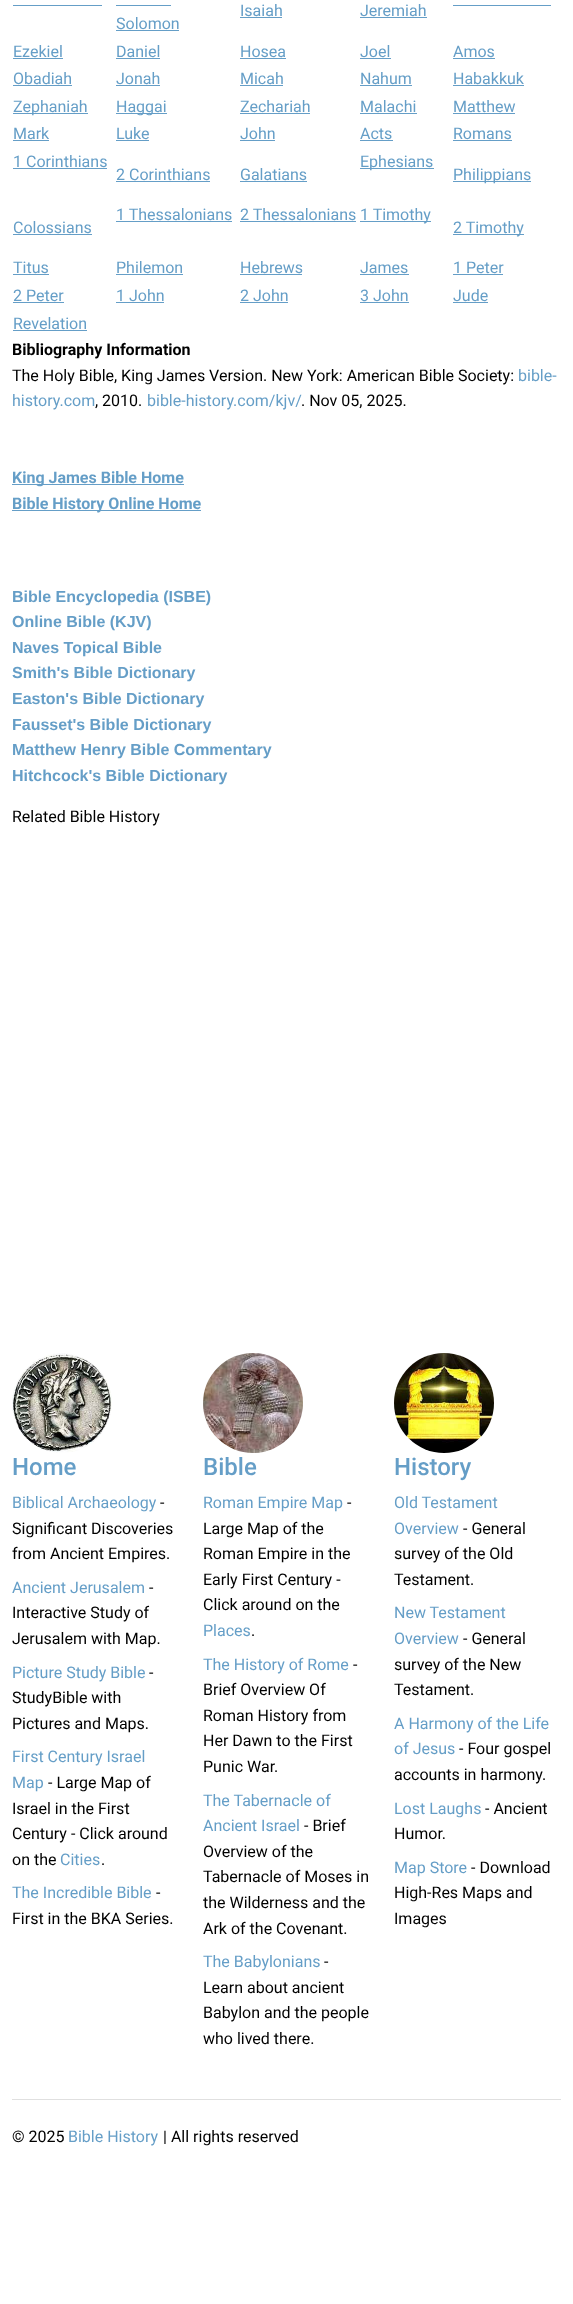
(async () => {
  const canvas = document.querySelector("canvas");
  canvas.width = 573;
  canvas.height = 2304;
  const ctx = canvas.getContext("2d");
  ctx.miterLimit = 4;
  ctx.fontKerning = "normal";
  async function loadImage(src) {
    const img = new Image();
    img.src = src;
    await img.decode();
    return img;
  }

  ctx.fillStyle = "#ffffff";
  ctx.fillRect(0, 0, 573, 2304);
  for (const [x, y, w, h, color] of [
    [13, 5, 89, 1, "#659ec7"],
    [240, 17, 42, 1, "#659ec7"],
    [360, 17, 67, 1, "#659ec7"],
    [453, 5, 98, 1, "#659ec7"],
    [116, 5, 55, 1, "#659ec7"],
    [116, 30, 63, 1, "#659ec7"],
    [13, 58, 50, 1, "#659ec7"],
    [116, 58, 44, 1, "#659ec7"],
    [240, 58, 46, 1, "#659ec7"],
    [360, 58, 31, 1, "#659ec7"],
    [453, 58, 42, 1, "#659ec7"],
    [13, 85, 59, 1, "#659ec7"],
    [116, 85, 44, 1, "#659ec7"],
    [240, 85, 43, 1, "#659ec7"],
    [360, 85, 52, 1, "#659ec7"],
    [453, 85, 71, 1, "#659ec7"],
    [13, 113, 75, 1, "#659ec7"],
    [116, 113, 51, 1, "#659ec7"],
    [240, 113, 70, 1, "#659ec7"],
    [360, 113, 57, 1, "#659ec7"],
    [453, 113, 62, 1, "#659ec7"],
    [13, 140, 36, 1, "#659ec7"],
    [116, 140, 33, 1, "#659ec7"],
    [240, 140, 35, 1, "#659ec7"],
    [360, 140, 33, 1, "#659ec7"],
    [453, 140, 59, 1, "#659ec7"],
    [13, 168, 94, 1, "#659ec7"],
    [360, 168, 74, 1, "#659ec7"],
    [116, 181, 94, 1, "#659ec7"],
    [240, 181, 67, 1, "#659ec7"],
    [453, 181, 78, 1, "#659ec7"],
    [116, 221, 116, 1, "#659ec7"],
    [240, 221, 116, 1, "#659ec7"],
    [360, 221, 71, 1, "#659ec7"],
    [13, 234, 79, 1, "#659ec7"],
    [453, 234, 71, 1, "#659ec7"],
    [13, 274, 36, 1, "#659ec7"],
    [116, 274, 67, 1, "#659ec7"],
    [240, 274, 62, 1, "#659ec7"],
    [360, 274, 49, 1, "#659ec7"],
    [453, 274, 50, 1, "#659ec7"],
    [13, 302, 51, 1, "#659ec7"],
    [116, 302, 48, 1, "#659ec7"],
    [240, 302, 48, 1, "#659ec7"],
    [360, 302, 49, 1, "#659ec7"],
    [453, 302, 35, 1, "#659ec7"],
    [13, 330, 74, 1, "#659ec7"],
    [12, 484, 172, 1, "#659ec7"],
    [12, 510, 189, 1, "#659ec7"],
  ]) {
    ctx.fillStyle = color;
    ctx.fillRect(x, y, w, h);
  }
  ctx.drawImage(await loadImage("img/1.png"), 12, 1353, 100, 100);
  ctx.drawImage(await loadImage("img/2.png"), 203, 1353, 100, 100);
  ctx.drawImage(await loadImage("img/3.png"), 394, 1353, 100, 100);
  ctx.fillStyle = "#e0e0e0";
  ctx.fillRect(12, 2099, 549, 1);
  ctx.font = "16px Roboto";
  ctx.fillStyle = "#659ec7";
  for (const [text, x, y] of [
    ["Isaiah", 240, 16],
    ["Jeremiah", 360, 16],
    ["Solomon", 116, 29],
    ["Ezekiel", 13, 57],
    ["Daniel", 116, 57],
    ["Hosea", 240, 57],
    ["Joel", 360, 57],
    ["Amos", 453, 57],
    ["Obadiah", 13, 84],
    ["Jonah", 116, 84],
    ["Micah", 240, 84],
    ["Nahum", 360, 84],
    ["Habakkuk", 453, 84],
    ["Zephaniah", 13, 112],
    ["Haggai", 116, 112],
    ["Zechariah", 240, 112],
    ["Malachi", 360, 112],
    ["Matthew", 453, 112],
    ["Mark", 13, 139],
    ["Luke", 116, 139],
    ["John", 240, 139],
    ["Acts", 360, 139],
    ["Romans", 453, 139],
    ["1 Corinthians", 13, 167],
    ["Ephesians", 360, 167],
    ["2 Corinthians", 116, 180],
    ["Galatians", 240, 180],
    ["Philippians", 453, 180],
    ["1 Thessalonians", 116, 220],
    ["2 Thessalonians", 240, 220],
    ["1 Timothy", 360, 220],
    ["Colossians", 13, 233],
    ["2 Timothy", 453, 233],
    ["Titus", 13, 273],
    ["Philemon", 116, 273],
    ["Hebrews", 240, 273],
    ["James", 360, 273],
    ["1 Peter", 453, 273],
    ["2 Peter", 13, 301],
    ["1 John", 116, 301],
    ["2 John", 240, 301],
    ["3 John", 360, 301],
    ["Jude", 453, 301],
    ["Revelation", 13, 329],
  ]) {
    ctx.fillText(text, x, y);
  }
  ctx.font = "bold 16px Roboto";
  ctx.fillStyle = "#000000";
  ctx.fillText("Bibliography Information", 12, 355);
  ctx.font = "16px Roboto";
  ctx.fillText("The Holy Bible, King James Version. New York: American Bible Society:", 12, 381);
  ctx.fillStyle = "#659ec7";
  ctx.fillText("bible-", 518, 381);
  ctx.fillText("history.com", 12, 406);
  ctx.fillStyle = "#000000";
  ctx.fillText(", 2010.", 95, 406);
  ctx.fillStyle = "#659ec7";
  ctx.fillText("bible-history.com/kjv/", 147, 406);
  ctx.fillStyle = "#000000";
  ctx.fillText(". Nov 05, 2025.", 301, 406);
  ctx.font = "bold 16px Roboto";
  ctx.fillStyle = "#659ec7";
  ctx.fillText("King James Bible Home", 12, 483);
  ctx.fillText("Bible History Online Home", 12, 509);
  ctx.font = "bold 16px Liberation Sans";
  for (const [text, x, y] of [
    ["Bible Encyclopedia (ISBE)", 12, 602],
    ["Online Bible (KJV)", 12, 627],
    ["Naves Topical Bible", 12, 653],
    ["Smith's Bible Dictionary", 12, 678],
    ["Easton's Bible Dictionary", 12, 704],
    ["Fausset's Bible Dictionary", 12, 730],
    ["Matthew Henry Bible Commentary", 12, 755],
    ["Hitchcock's Bible Dictionary", 12, 781],
  ]) {
    ctx.fillText(text, x, y);
  }
  ctx.font = "16px Roboto";
  ctx.fillStyle = "#000000";
  ctx.fillText("Related Bible History", 12, 822);
  ctx.font = "500 24px Roboto";
  ctx.fillStyle = "#659ec7";
  ctx.fillText("Home", 12, 1475);
  ctx.font = "16px Roboto";
  ctx.fillText("Biblical Archaeology", 12, 1508);
  ctx.fillStyle = "#000000";
  for (const [text, x, y] of [
    ["-", 160, 1508],
    ["Significant Discoveries", 12, 1534],
    ["from Ancient Empires.", 12, 1559],
  ]) {
    ctx.fillText(text, x, y);
  }
  ctx.fillStyle = "#659ec7";
  ctx.fillText("Ancient Jerusalem", 12, 1593);
  ctx.fillStyle = "#000000";
  for (const [text, x, y] of [
    ["-", 149, 1593],
    ["Interactive Study of", 12, 1618],
    ["Jerusalem with Map.", 12, 1644],
  ]) {
    ctx.fillText(text, x, y);
  }
  ctx.fillStyle = "#659ec7";
  ctx.fillText("Picture Study Bible", 12, 1678);
  ctx.fillStyle = "#000000";
  for (const [text, x, y] of [
    ["-", 149, 1678],
    ["StudyBible with", 12, 1703],
    ["Pictures and Maps.", 12, 1729],
  ]) {
    ctx.fillText(text, x, y);
  }
  ctx.fillStyle = "#659ec7";
  ctx.fillText("First Century Israel", 12, 1762);
  ctx.fillText("Map", 12, 1788);
  ctx.fillStyle = "#000000";
  for (const [text, x, y] of [
    ["- Large Map of", 48, 1788],
    ["Israel in the First", 12, 1814],
    ["Century - Click around", 12, 1839],
    ["on the", 12, 1865],
  ]) {
    ctx.fillText(text, x, y);
  }
  ctx.fillStyle = "#659ec7";
  ctx.fillText("Cities", 60, 1865);
  ctx.fillStyle = "#000000";
  ctx.fillText(".", 101, 1865);
  ctx.fillStyle = "#659ec7";
  ctx.fillText("The Incredible Bible", 12, 1898);
  ctx.fillStyle = "#000000";
  ctx.fillText("-", 156, 1898);
  ctx.fillText("First in the BKA Series.", 12, 1924);
  ctx.font = "500 24px Roboto";
  ctx.fillStyle = "#659ec7";
  ctx.fillText("Bible", 203, 1475);
  ctx.font = "16px Roboto";
  ctx.fillText("Roman Empire Map", 203, 1508);
  ctx.fillStyle = "#000000";
  for (const [text, x, y] of [
    ["-", 347, 1508],
    ["Large Map of the", 203, 1534],
    ["Roman Empire in the", 203, 1559],
    ["Early First Century -", 203, 1585],
    ["Click around on the", 203, 1610],
  ]) {
    ctx.fillText(text, x, y);
  }
  ctx.fillStyle = "#659ec7";
  ctx.fillText("Places", 203, 1636);
  ctx.fillStyle = "#000000";
  ctx.fillText(".", 251, 1636);
  ctx.fillStyle = "#659ec7";
  ctx.fillText("The History of Rome", 203, 1670);
  ctx.fillStyle = "#000000";
  for (const [text, x, y] of [
    ["-", 353, 1670],
    ["Brief Overview Of", 203, 1695],
    ["Roman History from", 203, 1721],
    ["Her Dawn to the First", 203, 1746],
    ["Punic War.", 203, 1772],
  ]) {
    ctx.fillText(text, x, y);
  }
  ctx.fillStyle = "#659ec7";
  ctx.fillText("The Tabernacle of", 203, 1806);
  ctx.fillText("Ancient Israel", 203, 1831);
  ctx.fillStyle = "#000000";
  for (const [text, x, y] of [
    ["- Brief", 304, 1831],
    ["Overview of the", 203, 1857],
    ["Tabernacle of Moses in", 203, 1882],
    ["the Wilderness and the", 203, 1908],
    ["Ark of the Covenant.", 203, 1934],
  ]) {
    ctx.fillText(text, x, y);
  }
  ctx.fillStyle = "#659ec7";
  ctx.fillText("The Babylonians", 203, 1967);
  ctx.fillStyle = "#000000";
  for (const [text, x, y] of [
    ["-", 324, 1967],
    ["Learn about ancient", 203, 1993],
    ["Babylon and the people", 203, 2018],
    ["who lived there.", 203, 2044],
  ]) {
    ctx.fillText(text, x, y);
  }
  ctx.font = "500 24px Roboto";
  ctx.fillStyle = "#659ec7";
  ctx.fillText("History", 394, 1475);
  ctx.font = "16px Roboto";
  ctx.fillText("Old Testament", 394, 1508);
  ctx.fillText("Overview", 394, 1534);
  ctx.fillStyle = "#000000";
  for (const [text, x, y] of [
    ["- General", 463, 1534],
    ["survey of the Old", 394, 1559],
    ["Testament.", 394, 1585],
  ]) {
    ctx.fillText(text, x, y);
  }
  ctx.fillStyle = "#659ec7";
  ctx.fillText("New Testament", 394, 1618);
  ctx.fillText("Overview", 394, 1644);
  ctx.fillStyle = "#000000";
  for (const [text, x, y] of [
    ["- General", 463, 1644],
    ["survey of the New", 394, 1670],
    ["Testament.", 394, 1695],
  ]) {
    ctx.fillText(text, x, y);
  }
  ctx.fillStyle = "#659ec7";
  ctx.fillText("A Harmony of the Life", 394, 1729);
  ctx.fillText("of Jesus", 394, 1754);
  ctx.fillStyle = "#000000";
  ctx.fillText("- Four gospel", 459, 1754);
  ctx.fillText("accounts in harmony.", 394, 1780);
  ctx.fillStyle = "#659ec7";
  ctx.fillText("Lost Laughs", 394, 1814);
  ctx.fillStyle = "#000000";
  ctx.fillText("- Ancient", 485, 1814);
  ctx.fillText("Humor.", 394, 1839);
  ctx.fillStyle = "#659ec7";
  ctx.fillText("Map Store", 394, 1873);
  ctx.fillStyle = "#000000";
  for (const [text, x, y] of [
    ["- Download", 471, 1873],
    ["High-Res Maps and", 394, 1898],
    ["Images", 394, 1924],
    ["© 2025", 12, 2142],
  ]) {
    ctx.fillText(text, x, y);
  }
  ctx.fillStyle = "#659ec7";
  ctx.fillText("Bible History", 68, 2142);
  ctx.fillStyle = "#000000";
  ctx.fillText("| All rights reserved", 163, 2142);
})();
